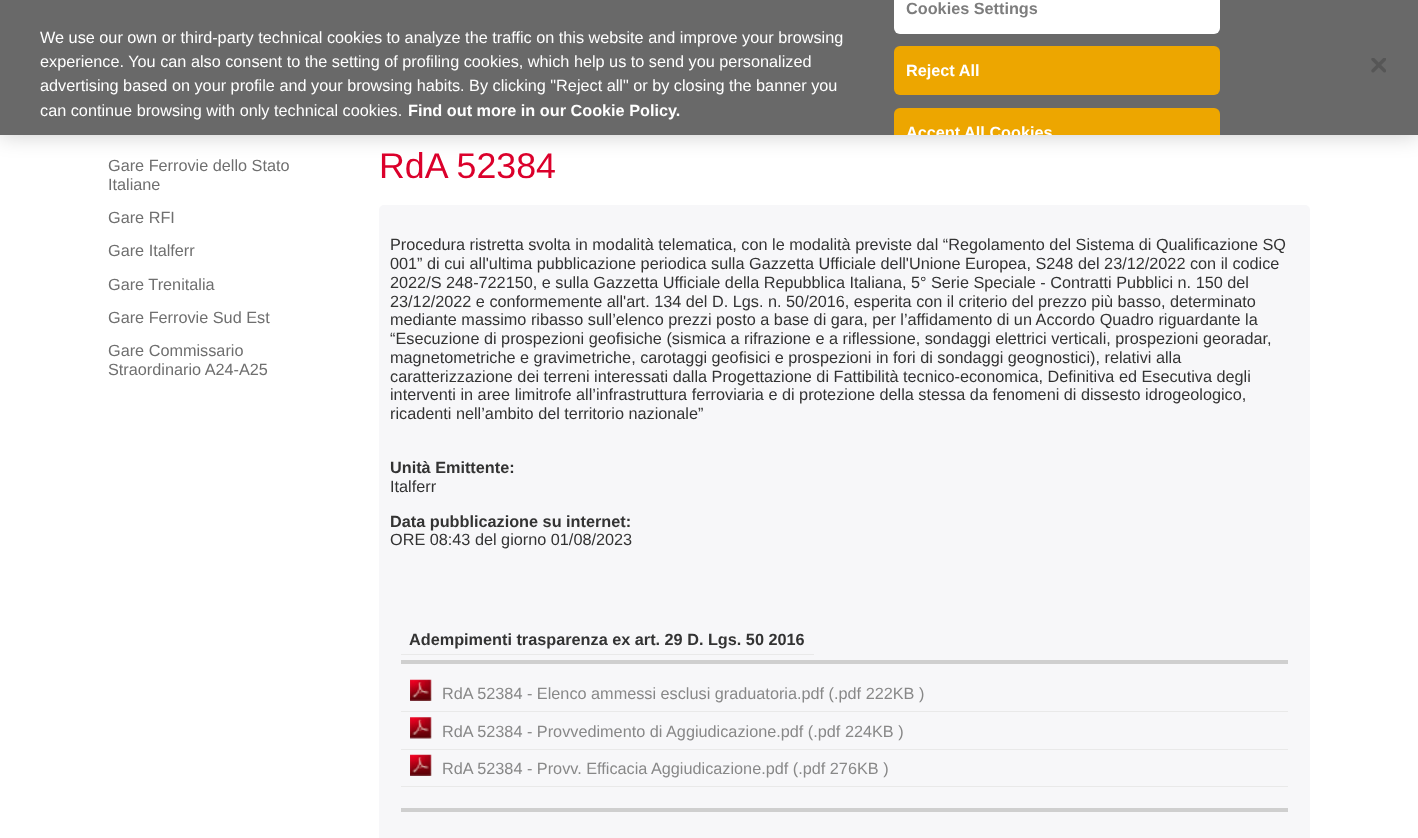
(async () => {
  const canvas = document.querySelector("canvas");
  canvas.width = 1418;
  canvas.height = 838;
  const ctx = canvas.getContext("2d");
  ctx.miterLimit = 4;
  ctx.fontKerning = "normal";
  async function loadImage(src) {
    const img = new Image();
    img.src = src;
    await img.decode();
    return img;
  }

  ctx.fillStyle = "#ffffff";
  ctx.fillRect(0, 0, 1418, 838);
  ctx.fillStyle = "rgba(0, 0, 0, 0.2)";
  ctx.filter = "blur(11px)";
  ctx.beginPath();
  ctx.rect(0, 0, 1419, 135);
  ctx.fill();
  ctx.filter = "none";
  ctx.fillStyle = "#696969";
  ctx.fillRect(0, 0, 1418, 135);
  ctx.fillStyle = "#ffffff";
  ctx.beginPath();
  ctx.roundRect(894, 0, 326, 34, [0, 0, 6, 6]);
  ctx.fill();
  ctx.fillStyle = "#eda600";
  ctx.beginPath();
  ctx.roundRect(894, 46, 326, 49, 6);
  ctx.fill();
  ctx.beginPath();
  ctx.roundRect(894, 108, 326, 27, [6, 6, 0, 0]);
  ctx.fill();
  ctx.drawImage(await loadImage("img/1.png"), 1371, 58, 15, 15);
  ctx.fillStyle = "#f7f7f9";
  ctx.beginPath();
  ctx.roundRect(379, 205, 931, 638, 5);
  ctx.fill();
  for (const [x, y, w, h, color] of [
    [401, 654, 413, 1, "#e9e9e9"],
    [401, 660, 887, 4, "#cfcfcf"],
    [401, 711, 887, 1, "#e9e9e9"],
  ]) {
    ctx.fillStyle = color;
    ctx.fillRect(x, y, w, h);
  }
  ctx.drawImage(await loadImage("img/2.png"), 410, 679, 22, 22);
  ctx.fillRect(401, 749, 887, 1);
  ctx.drawImage(await loadImage("img/3.png"), 410, 717, 22, 22);
  ctx.fillRect(401, 786, 887, 1);
  ctx.drawImage(await loadImage("img/2.png"), 410, 754, 22, 22);
  ctx.fillStyle = "#cfcfcf";
  ctx.fillRect(401, 808, 887, 4);
  ctx.font = "16.25px Liberation Sans";
  ctx.fillStyle = "#ffffff";
  for (const [text, x, y] of [
    ["We use our own or third-party technical cookies to analyze the traffic on this website and improve your browsing", 40, 43],
    ["experience. You can also consent to the setting of profiling cookies, which help us to send you personalized", 40, 67],
    ["advertising based on your profile and your browsing habits. By clicking \"Reject all\" or by closing the banner you", 40, 91],
    ["can continue browsing with only technical cookies.", 40, 116],
  ]) {
    ctx.fillText(text, x, y);
  }
  ctx.font = "bold 16.25px Liberation Sans";
  ctx.fillText("Find out more in our Cookie Policy.", 408, 116);
  ctx.fillStyle = "#7d7d7d";
  ctx.fillText("Cookies Settings", 906, 14);
  ctx.fillStyle = "#ffffff";
  ctx.fillText("Reject All", 906, 76);
  ctx.save();
  ctx.beginPath();
  ctx.rect(0, 0, 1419, 135);
  ctx.clip();
  ctx.fillText("Accept All Cookies", 906, 138);
  ctx.restore();
  ctx.font = "16.25px Liberation Sans";
  ctx.fillStyle = "#6f6f6f";
  for (const [text, x, y] of [
    ["Gare Ferrovie dello Stato", 108, 171],
    ["Italiane", 108, 190],
    ["Gare RFI", 108, 223],
    ["Gare Italferr", 108, 256],
    ["Gare Trenitalia", 108, 290],
    ["Gare Ferrovie Sud Est", 108, 323],
    ["Gare Commissario", 108, 356],
    ["Straordinario A24-A25", 108, 375],
  ]) {
    ctx.fillText(text, x, y);
  }
  ctx.font = "35.75px Liberation Sans";
  ctx.fillStyle = "#db002b";
  ctx.fillText("RdA 52384", 379, 178);
  ctx.font = "16.25px Liberation Sans";
  ctx.fillStyle = "#333333";
  for (const [text, x, y] of [
    ["Procedura ristretta svolta in modalità telematica, con le modalità previste dal “Regolamento del Sistema di Qualificazione SQ", 390, 250],
    ["001” di cui all'ultima pubblicazione periodica sulla Gazzetta Ufficiale dell'Unione Europea, S248 del 23/12/2022 con il codice", 390, 269],
    ["2022/S 248-722150, e sulla Gazzetta Ufficiale della Repubblica Italiana, 5° Serie Speciale - Contratti Pubblici n. 150 del", 390, 288],
    ["23/12/2022 e conformemente all'art. 134 del D. Lgs. n. 50/2016, esperita con il criterio del prezzo più basso, determinato", 390, 307],
    ["mediante massimo ribasso sull’elenco prezzi posto a base di gara, per l’affidamento di un Accordo Quadro riguardante la", 390, 325],
    ["“Esecuzione di prospezioni geofisiche (sismica a rifrazione e a riflessione, sondaggi elettrici verticali, prospezioni georadar,", 390, 344],
    ["magnetometriche e gravimetriche, carotaggi geofisici e prospezioni in fori di sondaggi geognostici), relativi alla", 390, 363],
    ["caratterizzazione dei terreni interessati dalla Progettazione di Fattibilità tecnico-economica, Definitiva ed Esecutiva degli", 390, 382],
    ["interventi in aree limitrofe all’infrastruttura ferroviaria e di protezione della stessa da fenomeni di dissesto idrogeologico,", 390, 400],
    ["ricadenti nell’ambito del territorio nazionale”", 390, 419],
  ]) {
    ctx.fillText(text, x, y);
  }
  ctx.font = "bold 16.25px Liberation Sans";
  ctx.fillText("Unità Emittente:", 390, 473);
  ctx.font = "16.25px Liberation Sans";
  ctx.fillText("Italferr", 390, 492);
  ctx.font = "bold 16.25px Liberation Sans";
  ctx.fillText("Data pubblicazione su internet:", 390, 527);
  ctx.font = "16.25px Liberation Sans";
  ctx.fillText("ORE 08:43 del giorno 01/08/2023", 390, 545);
  ctx.font = "bold 16.25px Liberation Sans";
  ctx.fillText("Adempimenti trasparenza ex art. 29 D. Lgs. 50 2016", 409, 645);
  ctx.font = "16.25px Liberation Sans";
  ctx.fillStyle = "#888888";
  for (const [text, x, y] of [
    ["RdA 52384 - Elenco ammessi esclusi graduatoria.pdf (.pdf 222KB )", 442, 699],
    ["RdA 52384 - Provvedimento di Aggiudicazione.pdf (.pdf 224KB )", 442, 737],
    ["RdA 52384 - Provv. Efficacia Aggiudicazione.pdf (.pdf 276KB )", 442, 774],
  ]) {
    ctx.fillText(text, x, y);
  }
})();
